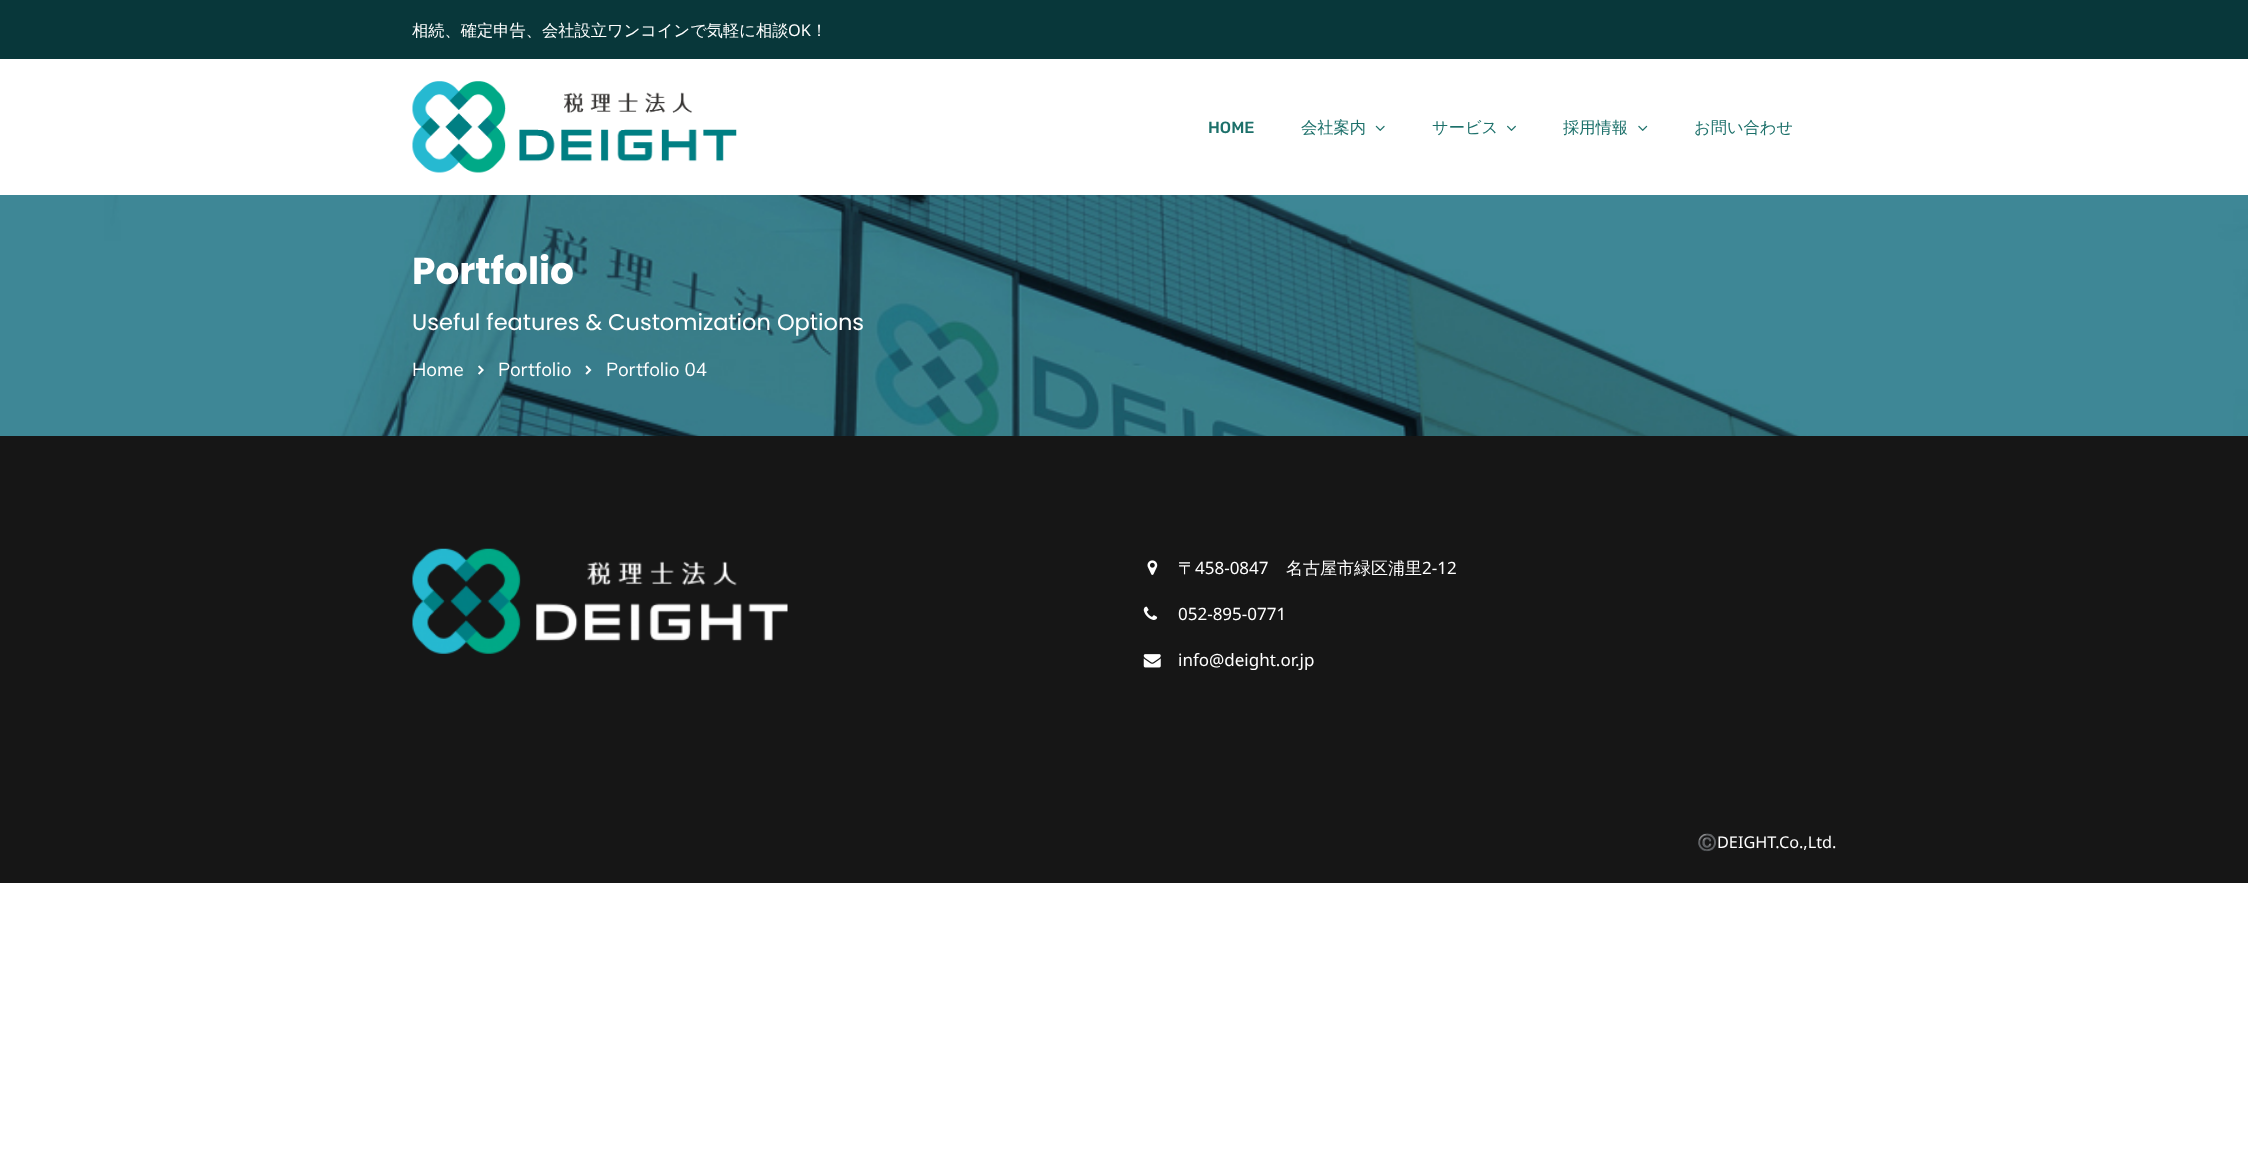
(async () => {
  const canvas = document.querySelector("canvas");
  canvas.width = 2248;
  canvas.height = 1164;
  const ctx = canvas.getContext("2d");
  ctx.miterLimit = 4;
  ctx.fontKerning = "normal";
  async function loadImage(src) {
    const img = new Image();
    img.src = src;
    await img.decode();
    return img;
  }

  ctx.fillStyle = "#ffffff";
  ctx.fillRect(0, 0, 2248, 1164);
  ctx.fillStyle = "#08373a";
  ctx.fillRect(0, 0, 2248, 59);
  ctx.drawImage(await loadImage("img/1.png"), 412, 81, 325, 92);
  ctx.drawImage(await loadImage("img/2.png"), 1375, 125, 10, 6);
  ctx.drawImage(await loadImage("img/3.png"), 1507, 125, 9, 6);
  ctx.drawImage(await loadImage("img/4.png"), 1638, 125, 10, 6);
  ctx.drawImage(await loadImage("img/5.png"), 0, 195, 2248, 241);
  ctx.drawImage(await loadImage("img/6.png"), 478, 365, 6, 10);
  ctx.drawImage(await loadImage("img/7.png"), 585, 365, 7, 10);
  ctx.fillStyle = "#161616";
  ctx.fillRect(0, 436, 2248, 447);
  ctx.drawImage(await loadImage("img/8.png"), 412, 548, 376, 106);
  ctx.drawImage(await loadImage("img/9.png"), 1147, 560, 11, 15);
  ctx.drawImage(await loadImage("img/10.png"), 1143, 606, 15, 14);
  ctx.drawImage(await loadImage("img/11.png"), 1143, 654, 18, 14);
  ctx.font = "500 16.25px WenQuanYi Zen Hei";
  ctx.fillStyle = "#ffffff";
  ctx.fillText("相続、確定申告、会社設立ワンコインで気軽に相談", 412, 36);
  ctx.font = "16.25px Noto Sans";
  ctx.fillText("OK", 788, 36);
  ctx.font = "500 16.25px WenQuanYi Zen Hei";
  ctx.fillText("！", 811, 36);
  ctx.font = "500 16.25px Rubik";
  ctx.fillStyle = "#1c706a";
  ctx.fillText("HOME", 1208, 133);
  ctx.font = "500 16.25px WenQuanYi Zen Hei";
  for (const [text, x, y] of [
    ["会社案内", 1301, 133],
    ["サービス", 1432, 133],
    ["採用情報", 1563, 133],
    ["お問い合わせ", 1694, 133],
  ]) {
    ctx.fillText(text, x, y);
  }
  ctx.font = "bold 37.5px Poppins";
  ctx.fillStyle = "#ffffff";
  ctx.fillText("Portfolio", 412, 284);
  ctx.font = "22.5px Poppins";
  ctx.fillText("Useful features & Customization Options", 412, 330);
  ctx.font = "18.75px Muli";
  for (const [text, x, y] of [
    ["Home", 412, 376],
    ["Portfolio", 498, 376],
    ["Portfolio 04", 606, 376],
  ]) {
    ctx.fillText(text, x, y);
  }
  ctx.font = "500 17px WenQuanYi Zen Hei";
  ctx.fillText("〒", 1178, 574);
  ctx.font = "17px Noto Sans";
  ctx.fillText("458-0847", 1195, 574);
  ctx.font = "500 17px WenQuanYi Zen Hei";
  ctx.fillText("名古屋市緑区浦里", 1286, 574);
  ctx.font = "17px Noto Sans";
  for (const [text, x, y] of [
    ["2-12", 1422, 574],
    ["052-895-0771", 1178, 620],
    ["info@deight.or.jp", 1178, 666],
  ]) {
    ctx.fillText(text, x, y);
  }
  ctx.font = "16.25px Noto Color Emoji";
  ctx.fillText("©️", 1697, 848);
  ctx.font = "16.25px Noto Sans";
  ctx.fillText("DEIGHT.Co.,Ltd.", 1717, 848);
})();
